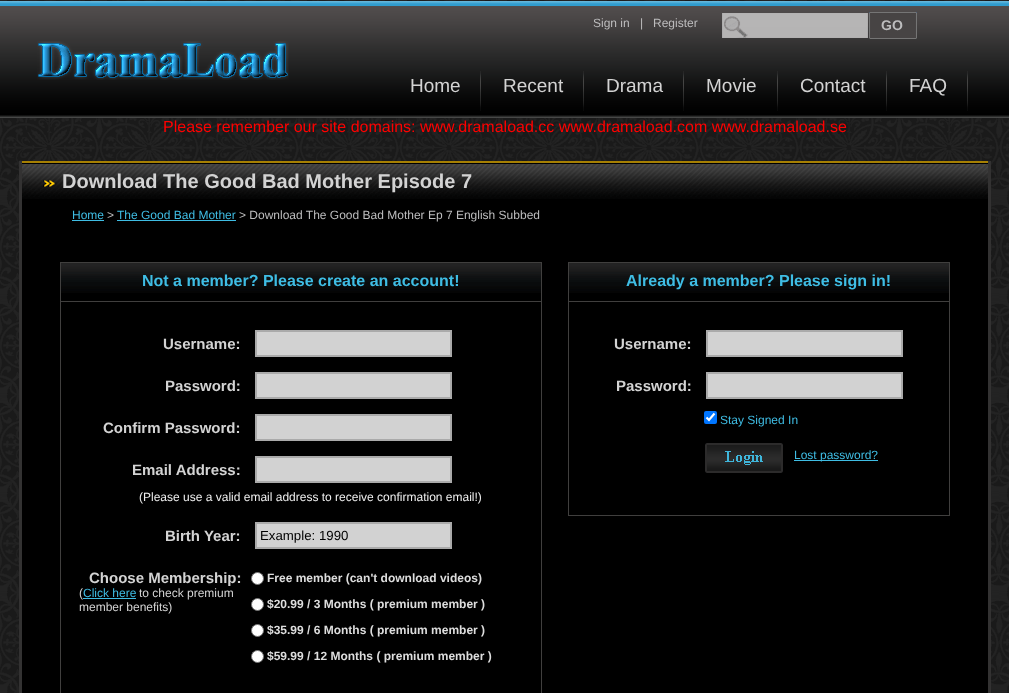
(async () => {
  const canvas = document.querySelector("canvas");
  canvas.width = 1009;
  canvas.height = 693;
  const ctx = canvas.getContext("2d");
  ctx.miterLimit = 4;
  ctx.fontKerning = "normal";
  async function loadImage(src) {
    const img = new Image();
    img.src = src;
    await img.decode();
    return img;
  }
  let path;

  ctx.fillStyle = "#ffffff";
  ctx.fillRect(0, 0, 1009, 693);
  ctx.drawImage(await loadImage("img/1.png"), 0, 0, 1009, 693);
  ctx.drawImage(await loadImage("img/2.png"), 0, 1, 1009, 117);
  ctx.drawImage(await loadImage("img/3.png"), 37, 41, 252, 39);
  ctx.drawImage(await loadImage("img/4.png"), 722, 12, 195, 27);
  ctx.drawImage(await loadImage("img/5.png"), 480, 71, 1, 40);
  ctx.drawImage(await loadImage("img/5.png"), 583, 71, 1, 40);
  ctx.drawImage(await loadImage("img/5.png"), 683, 71, 1, 40);
  ctx.drawImage(await loadImage("img/5.png"), 777, 71, 1, 40);
  ctx.drawImage(await loadImage("img/5.png"), 886, 71, 1, 40);
  ctx.drawImage(await loadImage("img/5.png"), 967, 71, 1, 40);
  ctx.drawImage(await loadImage("img/6.png"), 19, 161, 972, 532);
  ctx.drawImage(await loadImage("img/7.png"), 22, 161, 966, 38);
  ctx.fillStyle = "#3fbde4";
  ctx.fillRect(72, 220, 32, 1);
  ctx.fillRect(117, 220, 119, 1);
  ctx.drawImage(await loadImage("img/8.png"), 61, 263, 480, 30);
  ctx.strokeStyle = "#403f3e";
  ctx.strokeRect(60.5, 262.5, 481, 39);
  ctx.fillStyle = "#403f3e";
  ctx.fillRect(541, 302, 1, 391);
  ctx.fillRect(60, 302, 1, 391);
  ctx.fillStyle = "#d2d2d2";
  ctx.beginPath();
  ctx.rect(256, 331, 195, 25);
  ctx.fill();
  ctx.strokeStyle = "#aaaaaa";
  ctx.lineWidth = 2;
  ctx.stroke();
  ctx.beginPath();
  ctx.rect(256, 373, 195, 25);
  ctx.fill();
  ctx.stroke();
  ctx.beginPath();
  ctx.rect(256, 415, 195, 25);
  ctx.fill();
  ctx.stroke();
  ctx.beginPath();
  ctx.rect(256, 457, 195, 25);
  ctx.fill();
  ctx.stroke();
  ctx.beginPath();
  ctx.rect(256, 523, 195, 25);
  ctx.fill();
  ctx.stroke();
  ctx.fillStyle = "#3fbde4";
  ctx.fillRect(83, 598, 53, 1);
  ctx.fillStyle = "#ffffff";
  ctx.beginPath();
  ctx.arc(257.5, 578.5, 6, 0, Math.PI * 2);
  ctx.fill();
  ctx.strokeStyle = "#767676";
  ctx.lineWidth = 1;
  ctx.stroke();
  ctx.beginPath();
  ctx.arc(257.5, 604.5, 6, 0, Math.PI * 2);
  ctx.fill();
  ctx.stroke();
  ctx.beginPath();
  ctx.arc(257.5, 630.5, 6, 0, Math.PI * 2);
  ctx.fill();
  ctx.stroke();
  ctx.beginPath();
  ctx.arc(257.5, 656.5, 6, 0, Math.PI * 2);
  ctx.fill();
  ctx.stroke();
  ctx.drawImage(await loadImage("img/9.png"), 569, 263, 380, 30);
  ctx.strokeStyle = "#403f3e";
  ctx.strokeRect(568.5, 262.5, 381, 39);
  for (const [x, y, w, h, color] of [
    [949, 302, 1, 214, "#403f3e"],
    [568, 515, 382, 1, "#403f3e"],
    [568, 302, 1, 214, "#403f3e"],
  ]) {
    ctx.fillStyle = color;
    ctx.fillRect(x, y, w, h);
  }
  ctx.fillStyle = "#d2d2d2";
  ctx.beginPath();
  ctx.rect(707, 331, 195, 25);
  ctx.fill();
  ctx.strokeStyle = "#aaaaaa";
  ctx.lineWidth = 2;
  ctx.stroke();
  ctx.beginPath();
  ctx.rect(707, 373, 195, 25);
  ctx.fill();
  ctx.stroke();
  ctx.fillStyle = "#0075ff";
  ctx.beginPath();
  ctx.roundRect(704, 411, 13, 13, 2);
  ctx.fill();
  path = new Path2D("M706.5 417.5L709 420L714.5 413.5");
  ctx.strokeStyle = "#ffffff";
  ctx.lineWidth = 2.1;
  ctx.stroke(path);
  ctx.drawImage(await loadImage("img/10.png"), 705, 443, 78, 30);
  ctx.fillStyle = "#3fbde4";
  ctx.fillRect(794, 460, 84, 1);
  ctx.font = "12px Liberation Sans";
  ctx.fillStyle = "#bdbdbe";
  for (const [text, x, y] of [
    ["Sign in", 593, 27],
    ["|", 640, 27],
    ["Register", 653, 27],
  ]) {
    ctx.fillText(text, x, y);
  }
  ctx.font = "bold 14px Liberation Sans";
  ctx.fillText("GO", 881, 30);
  ctx.font = "19px Liberation Sans";
  ctx.fillStyle = "#d3d3d3";
  for (const [text, x, y] of [
    ["Home", 410, 92],
    ["Recent", 503, 92],
    ["Drama", 606, 92],
    ["Movie", 706, 92],
    ["Contact", 800, 92],
    ["FAQ", 909, 92],
  ]) {
    ctx.fillText(text, x, y);
  }
  ctx.font = "16px Liberation Sans";
  ctx.fillStyle = "#ff0000";
  ctx.fillText("Please remember our site domains: www.dramaload.cc www.dramaload.com www.dramaload.se", 163, 132);
  ctx.font = "bold 20px Liberation Sans";
  ctx.fillStyle = "#d3d3d3";
  ctx.fillText("Download The Good Bad Mother Episode 7", 62, 188);
  ctx.font = "12px Liberation Sans";
  ctx.fillStyle = "#3fbde4";
  ctx.fillText("Home", 72, 219);
  ctx.fillStyle = "#bdbdbe";
  ctx.fillText(">", 107, 219);
  ctx.fillStyle = "#3fbde4";
  ctx.fillText("The Good Bad Mother", 117, 219);
  ctx.fillStyle = "#bdbdbe";
  ctx.fillText("> Download The Good Bad Mother Ep 7 English Subbed", 239, 219);
  ctx.font = "bold 16px Liberation Sans";
  ctx.fillStyle = "#3fbde4";
  ctx.fillText("Not a member? Please create an account!", 142, 286);
  ctx.font = "bold 15px Liberation Sans";
  ctx.fillStyle = "#d3d3d3";
  for (const [text, x, y] of [
    ["Username:", 163, 349],
    ["Password:", 165, 391],
    ["Confirm Password:", 103, 433],
    ["Email Address:", 132, 475],
  ]) {
    ctx.fillText(text, x, y);
  }
  ctx.font = "12px Liberation Sans";
  ctx.fillStyle = "#eeeeee";
  ctx.fillText("(Please use a valid email address to receive confirmation email!)", 139, 501);
  ctx.font = "bold 15px Liberation Sans";
  ctx.fillStyle = "#d3d3d3";
  ctx.fillText("Birth Year:", 165, 541);
  ctx.font = "13.25px Liberation Sans";
  ctx.fillStyle = "#000000";
  ctx.fillText("Example: 1990", 260, 540);
  ctx.font = "bold 15px Liberation Sans";
  ctx.fillStyle = "#d3d3d3";
  ctx.fillText("Choose Membership:", 89, 583);
  ctx.font = "12px Liberation Sans";
  ctx.fillText("(", 79, 597);
  ctx.fillStyle = "#3fbde4";
  ctx.fillText("Click here", 83, 597);
  ctx.fillStyle = "#d3d3d3";
  ctx.fillText("to check premium", 139, 597);
  ctx.fillText("member benefits)", 79, 611);
  ctx.font = "bold 12px Liberation Sans";
  ctx.fillStyle = "#dddddd";
  for (const [text, x, y] of [
    ["Free member (can't download videos)", 267, 582],
    ["$20.99 / 3 Months ( premium member )", 267, 608],
    ["$35.99 / 6 Months ( premium member )", 267, 634],
    ["$59.99 / 12 Months ( premium member )", 267, 660],
  ]) {
    ctx.fillText(text, x, y);
  }
  ctx.font = "bold 16px Liberation Sans";
  ctx.fillStyle = "#3fbde4";
  ctx.fillText("Already a member? Please sign in!", 626, 286);
  ctx.font = "bold 15px Liberation Sans";
  ctx.fillStyle = "#d3d3d3";
  ctx.fillText("Username:", 614, 349);
  ctx.fillText("Password:", 616, 391);
  ctx.font = "12px Liberation Sans";
  ctx.fillStyle = "#3fbde4";
  ctx.fillText("Stay Signed In", 720, 424);
  ctx.fillText("Lost password?", 794, 459);
})();
